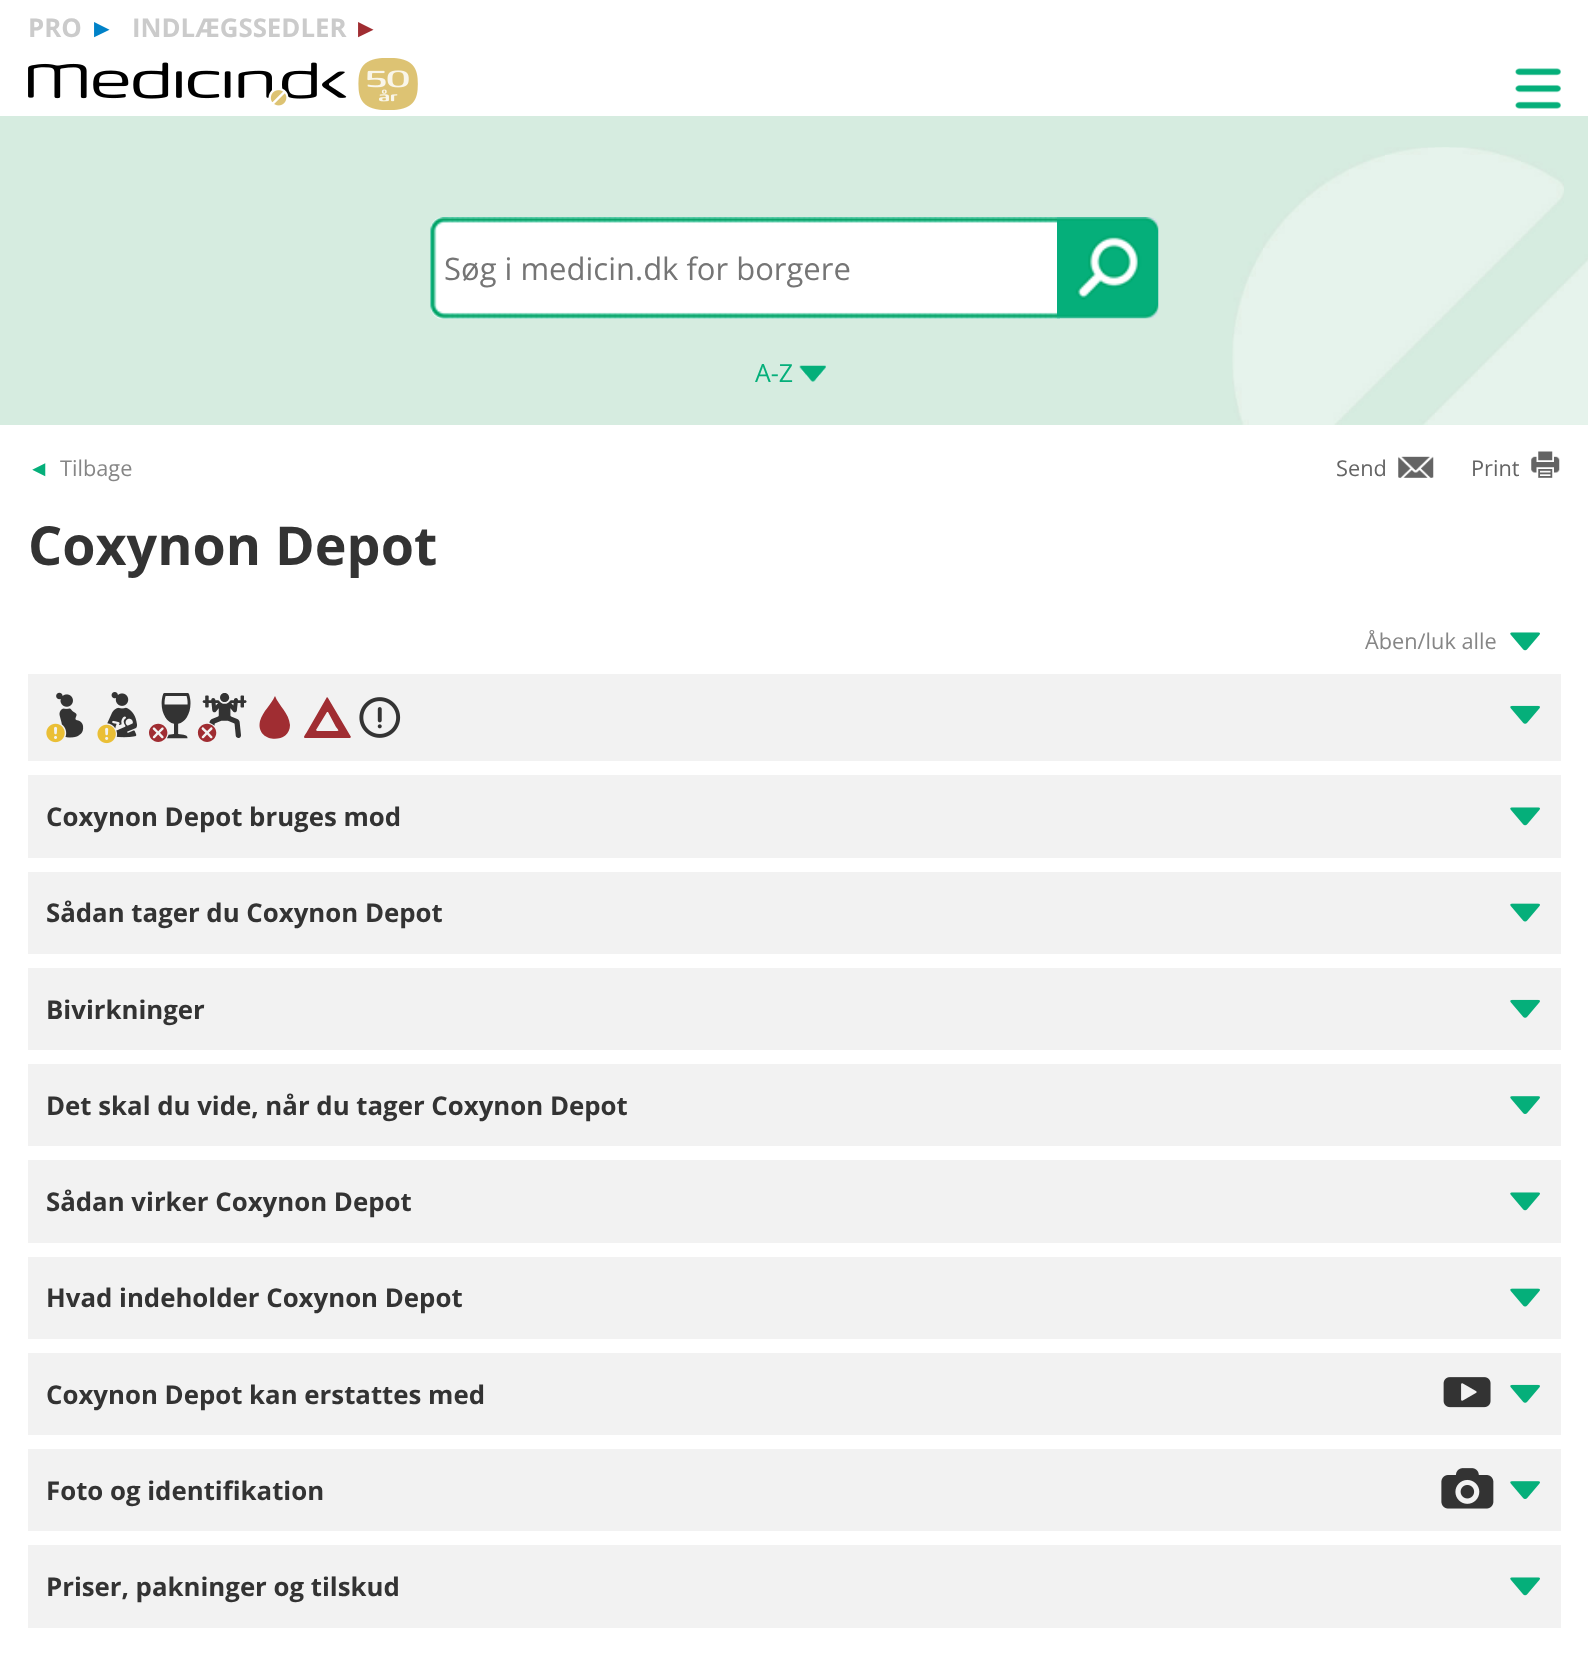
(async () => {
  const canvas = document.querySelector("canvas");
  canvas.width = 1588;
  canvas.height = 1656;
  const ctx = canvas.getContext("2d");
  ctx.miterLimit = 4;
  ctx.fontKerning = "normal";
  async function loadImage(src) {
    const img = new Image();
    img.src = src;
    await img.decode();
    return img;
  }
  let path;

  ctx.fillStyle = "#ffffff";
  ctx.fillRect(0, 0, 1588, 1656);
  ctx.drawImage(await loadImage("img/1.png"), 28, 58, 390, 52);
  ctx.drawImage(await loadImage("img/2.png"), 1515, 68, 46, 41);
  ctx.fillStyle = "#d6ece0";
  ctx.fillRect(0, 116, 1588, 309);
  ctx.drawImage(await loadImage("img/3.png"), 1232, 147, 356, 278);
  ctx.fillStyle = "#ffffff";
  ctx.beginPath();
  ctx.roundRect(431, 217, 630, 102, [12, 0, 0, 12]);
  ctx.fill();
  ctx.drawImage(await loadImage("img/4.png"), 430, 217, 631, 102);
  ctx.drawImage(await loadImage("img/5.png"), 1057, 217, 102, 102);
  ctx.drawImage(await loadImage("img/6.png"), 799, 365, 27, 17);
  ctx.drawImage(await loadImage("img/7.png"), 1398, 456, 36, 22);
  ctx.drawImage(await loadImage("img/8.png"), 1531, 451, 29, 27);
  ctx.drawImage(await loadImage("img/9.png"), 1510, 632, 30, 19);
  ctx.fillStyle = "#f2f2f2";
  ctx.fillRect(28, 674, 1533, 87);
  ctx.drawImage(await loadImage("img/10.png"), 46, 692, 38, 51);
  ctx.drawImage(await loadImage("img/11.png"), 97, 692, 40, 52);
  ctx.drawImage(await loadImage("img/12.png"), 149, 693, 42, 49);
  ctx.drawImage(await loadImage("img/13.png"), 197, 693, 50, 49);
  ctx.fillStyle = "#a02d32";
  path = new Path2D("M275 696C271 705 263 711 260 721C255 743 290 745 290 725C289 713 279 706 275 696Z");
  ctx.fill(path, "evenodd");
  path = new Path2D("M350 738H312C301 738 303 739 308 730L327 697L328 698L351 737ZM317 731H334C340 731 339 731 336 727L328 712H327L316 730Z");
  ctx.fill(path, "evenodd");
  ctx.drawImage(await loadImage("img/14.png"), 359, 697, 42, 41);
  ctx.drawImage(await loadImage("img/15.png"), 1510, 705, 30, 19);
  ctx.fillStyle = "#f2f2f2";
  ctx.fillRect(28, 775, 1533, 83);
  ctx.drawImage(await loadImage("img/16.png"), 1510, 807, 30, 19);
  ctx.fillRect(28, 872, 1533, 82);
  ctx.drawImage(await loadImage("img/17.png"), 1510, 903, 30, 19);
  ctx.fillRect(28, 968, 1533, 82);
  ctx.drawImage(await loadImage("img/15.png"), 1510, 999, 30, 19);
  ctx.fillRect(28, 1064, 1533, 82);
  ctx.drawImage(await loadImage("img/18.png"), 1510, 1096, 30, 18);
  ctx.fillRect(28, 1160, 1533, 83);
  ctx.drawImage(await loadImage("img/16.png"), 1510, 1192, 30, 19);
  ctx.fillRect(28, 1257, 1533, 82);
  ctx.drawImage(await loadImage("img/17.png"), 1510, 1288, 30, 19);
  ctx.fillRect(28, 1353, 1533, 82);
  ctx.drawImage(await loadImage("img/19.png"), 1443, 1377, 48, 31);
  ctx.drawImage(await loadImage("img/15.png"), 1510, 1384, 30, 19);
  ctx.fillRect(28, 1449, 1533, 82);
  ctx.drawImage(await loadImage("img/20.png"), 1441, 1468, 53, 41);
  ctx.drawImage(await loadImage("img/18.png"), 1510, 1481, 30, 18);
  ctx.fillRect(28, 1545, 1533, 83);
  ctx.drawImage(await loadImage("img/16.png"), 1510, 1577, 30, 19);
  ctx.font = "bold 25.8px Open Sans";
  ctx.fillStyle = "#cbcbcb";
  ctx.fillText("PRO", 28, 37);
  ctx.font = "bold 25.8px Liberation Sans";
  ctx.fillStyle = "#0082c8";
  ctx.fillText("►", 89, 37);
  ctx.font = "bold 25.8px Open Sans";
  ctx.fillStyle = "#cbcbcb";
  ctx.fillText("INDLÆGSSEDLER", 132, 37);
  ctx.font = "bold 25.8px Liberation Sans";
  ctx.fillStyle = "#a02d32";
  ctx.fillText("►", 353, 37);
  ctx.font = "31px Open Sans";
  ctx.fillStyle = "#757575";
  ctx.fillText("Søg i medicin.dk for borgere", 444, 280);
  ctx.font = "25px Open Sans";
  ctx.fillStyle = "#05af7a";
  ctx.fillText("A-Z", 755, 382);
  ctx.font = "21.75px Liberation Sans";
  ctx.fillText("◄", 28, 476);
  ctx.font = "21.75px Open Sans";
  ctx.fillStyle = "#868686";
  ctx.fillText("Tilbage", 60, 476);
  ctx.fillStyle = "#646464";
  ctx.fillText("Send", 1336, 476);
  ctx.fillText("Print", 1471, 476);
  ctx.font = "bold 53.75px Open Sans";
  ctx.fillStyle = "#333333";
  ctx.fillText("Coxynon Depot", 28, 565);
  ctx.font = "21.75px Open Sans";
  ctx.fillStyle = "#868686";
  ctx.fillText("Åben/luk alle", 1365, 649);
  ctx.font = "bold 25.8px Open Sans";
  ctx.fillStyle = "#333333";
  for (const [text, x, y] of [
    ["Coxynon Depot bruges mod", 46, 826],
    ["Sådan tager du Coxynon Depot", 46, 922],
    ["Bivirkninger", 46, 1019],
    ["Det skal du vide, når du tager Coxynon Depot", 46, 1115],
    ["Sådan virker Coxynon Depot", 46, 1211],
    ["Hvad indeholder Coxynon Depot", 46, 1307],
    ["Coxynon Depot kan erstattes med", 46, 1404],
    ["Foto og identifikation", 46, 1500],
    ["Priser, pakninger og tilskud", 46, 1596],
  ]) {
    ctx.fillText(text, x, y);
  }
})();
